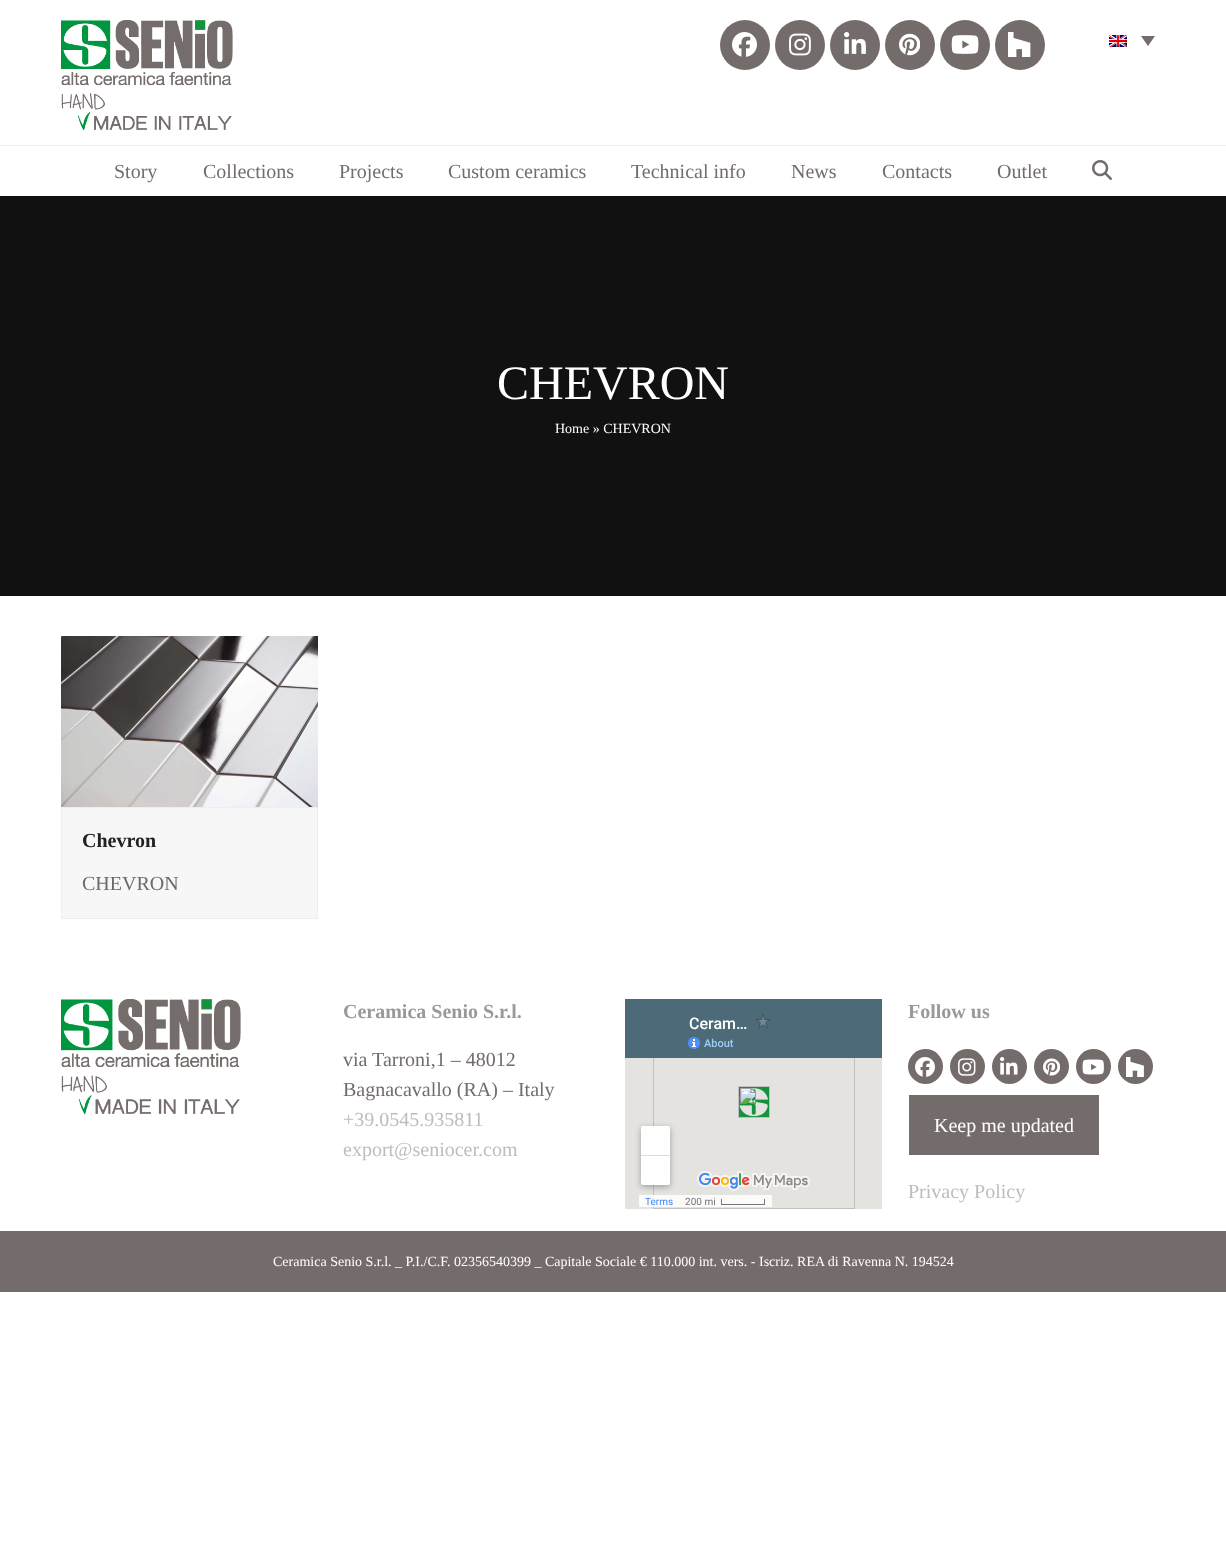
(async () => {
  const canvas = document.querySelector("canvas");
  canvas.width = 1226;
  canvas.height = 1556;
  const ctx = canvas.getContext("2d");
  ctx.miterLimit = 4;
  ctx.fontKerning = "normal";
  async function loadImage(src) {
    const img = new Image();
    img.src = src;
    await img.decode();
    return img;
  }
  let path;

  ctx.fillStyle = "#ffffff";
  ctx.fillRect(0, 0, 1226, 1556);
  ctx.drawImage(await loadImage("img/1.png"), 61, 20, 172, 110);
  ctx.fillStyle = "#736c6a";
  ctx.beginPath();
  ctx.arc(745, 45, 25, 0, Math.PI * 2);
  ctx.fill();
  ctx.drawImage(await loadImage("img/2.png"), 732, 32, 25, 25);
  ctx.beginPath();
  ctx.arc(800, 45, 25, 0, Math.PI * 2);
  ctx.fill();
  ctx.drawImage(await loadImage("img/3.png"), 789, 33, 22, 23);
  ctx.beginPath();
  ctx.arc(855, 45, 25, 0, Math.PI * 2);
  ctx.fill();
  ctx.drawImage(await loadImage("img/4.png"), 844, 32, 22, 22);
  ctx.beginPath();
  ctx.arc(910, 45, 25, 0, Math.PI * 2);
  ctx.fill();
  ctx.drawImage(await loadImage("img/5.png"), 899, 33, 21, 23);
  ctx.beginPath();
  ctx.arc(965, 45, 25, 0, Math.PI * 2);
  ctx.fill();
  ctx.drawImage(await loadImage("img/6.png"), 951, 35, 28, 19);
  ctx.beginPath();
  ctx.arc(1020, 45, 25, 0, Math.PI * 2);
  ctx.fill();
  ctx.drawImage(await loadImage("img/7.png"), 1008, 32, 23, 25);
  ctx.drawImage(await loadImage("img/8.png"), 1109, 35, 18, 12);
  path = new Path2D("M1141 36H1155L1148 46Z");
  ctx.fill(path);
  ctx.fillStyle = "#eeeeee";
  ctx.fillRect(0, 145, 1226, 1);
  ctx.drawImage(await loadImage("img/9.png"), 1092, 160, 20, 20);
  ctx.fillStyle = "#111111";
  ctx.fillRect(0, 196, 1226, 400);
  ctx.drawImage(await loadImage("img/10.png"), 61, 636, 257, 171);
  ctx.fillStyle = "#f7f7f7";
  ctx.beginPath();
  ctx.rect(61.5, 807.5, 256, 111);
  ctx.fill();
  ctx.strokeStyle = "#eeeeee";
  ctx.stroke();
  ctx.drawImage(await loadImage("img/11.png"), 61, 999, 180, 115);
  ctx.drawImage(await loadImage("img/12.png"), 625, 999, 257, 210);
  ctx.fillStyle = "#736c6a";
  ctx.beginPath();
  ctx.arc(925.5, 1066.5, 17.5, 0, Math.PI * 2);
  ctx.fill();
  ctx.drawImage(await loadImage("img/13.png"), 915, 1057, 20, 20);
  ctx.beginPath();
  ctx.arc(967.5, 1066.5, 17.5, 0, Math.PI * 2);
  ctx.fill();
  ctx.drawImage(await loadImage("img/14.png"), 958, 1058, 18, 18);
  ctx.beginPath();
  ctx.arc(1009.5, 1066.5, 17.5, 0, Math.PI * 2);
  ctx.fill();
  ctx.drawImage(await loadImage("img/15.png"), 1000, 1057, 18, 18);
  ctx.beginPath();
  ctx.arc(1051.5, 1066.5, 17.5, 0, Math.PI * 2);
  ctx.fill();
  ctx.drawImage(await loadImage("img/16.png"), 1043, 1058, 17, 18);
  ctx.beginPath();
  ctx.arc(1093.5, 1066.5, 17.5, 0, Math.PI * 2);
  ctx.fill();
  ctx.drawImage(await loadImage("img/17.png"), 1082, 1059, 22, 16);
  ctx.beginPath();
  ctx.arc(1135.5, 1066.5, 17.5, 0, Math.PI * 2);
  ctx.fill();
  ctx.drawImage(await loadImage("img/18.png"), 1126, 1057, 18, 20);
  ctx.fillRect(909, 1095, 190, 60);
  ctx.fillRect(0, 1231, 1226, 61);
  ctx.font = "20px Liberation Serif";
  for (const [text, x, y] of [
    ["Story", 114, 178],
    ["Collections", 203, 178],
    ["Projects", 339, 178],
    ["Custom ceramics", 448, 178],
    ["Technical info", 631, 178],
    ["News", 791, 178],
    ["Contacts", 882, 178],
    ["Outlet", 997, 178],
  ]) {
    ctx.fillText(text, x, y);
  }
  ctx.font = "48px Liberation Serif";
  ctx.fillStyle = "#ffffff";
  ctx.fillText("CHEVRON", 497, 399);
  ctx.font = "14px Liberation Serif";
  ctx.fillText("Home » CHEVRON", 555, 433);
  ctx.font = "bold 20px Liberation Serif";
  ctx.fillStyle = "#222222";
  ctx.fillText("Chevron", 82, 847);
  ctx.font = "20px Liberation Serif";
  ctx.fillStyle = "#6b6b6b";
  ctx.fillText("CHEVRON", 82, 890);
  ctx.font = "bold 20px Liberation Serif";
  ctx.fillStyle = "#999999";
  ctx.fillText("Ceramica Senio S.r.l.", 343, 1018);
  ctx.font = "20px Liberation Serif";
  ctx.fillStyle = "#736c6a";
  ctx.fillText("via Tarroni,1 – 48012", 343, 1066);
  ctx.fillText("Bagnacavallo (RA) – Italy", 343, 1096);
  ctx.fillStyle = "#bdbdbd";
  ctx.fillText("+39.0545.935811", 343, 1126);
  ctx.fillText("export@seniocer.com", 343, 1156);
  ctx.font = "bold 20px Liberation Serif";
  ctx.fillStyle = "#999999";
  ctx.fillText("Follow us", 908, 1018);
  ctx.font = "20px Liberation Serif";
  ctx.fillStyle = "#ffffff";
  ctx.fillText("Keep me updated", 934, 1132);
  ctx.fillStyle = "#bdbdbd";
  ctx.fillText("Privacy Policy", 908, 1198);
  ctx.font = "14px Liberation Serif";
  ctx.fillStyle = "#ffffff";
  ctx.fillText("Ceramica Senio S.r.l. _ P.I./C.F. 02356540399 _ Capitale Sociale € 110.000 int. vers. - Iscriz. REA di Ravenna N. 194524", 273, 1266);
})();
